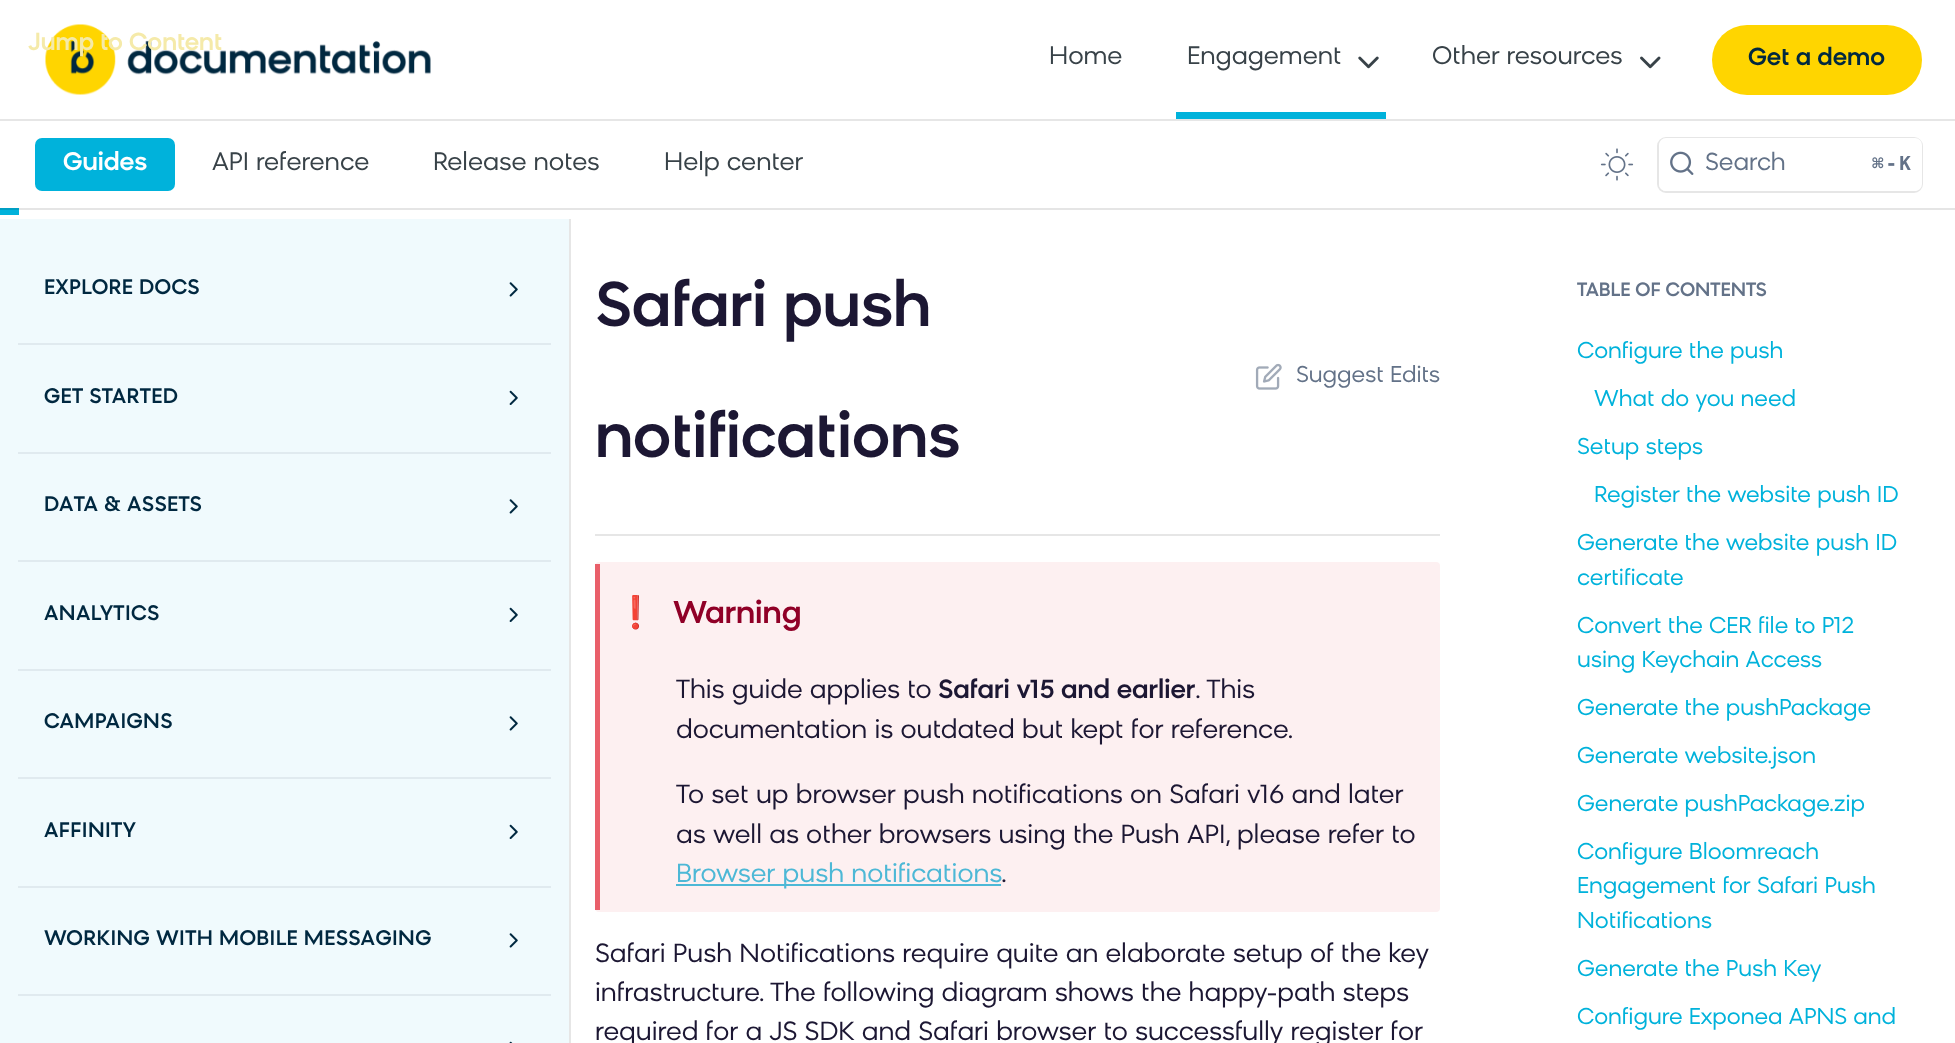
(async () => {
  const canvas = document.querySelector("canvas");
  canvas.width = 1955;
  canvas.height = 1043;
  const ctx = canvas.getContext("2d");
  ctx.miterLimit = 4;
  ctx.fontKerning = "normal";
  async function loadImage(src) {
    const img = new Image();
    img.src = src;
    await img.decode();
    return img;
  }
  let path;

  ctx.fillStyle = "#ffffff";
  ctx.fillRect(0, 0, 1955, 1043);
  ctx.fillStyle = "#00b2db";
  ctx.fillRect(0, 208, 19, 7);
  ctx.fillStyle = "rgba(0, 0, 0, 0.1)";
  path = new Path2D("M0 208V210H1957V2H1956V208Z");
  ctx.fill(path);
  ctx.fillStyle = "#e6e6e6";
  ctx.fillRect(0, 119, 1955, 2);
  ctx.drawImage(await loadImage("img/1.png"), 45, 24, 386, 71);
  ctx.drawImage(await loadImage("img/2.png"), 1358, 56, 21, 13);
  ctx.fillStyle = "#00b2db";
  ctx.fillRect(1176, 112, 210, 7);
  ctx.drawImage(await loadImage("img/3.png"), 1640, 56, 21, 13);
  ctx.fillStyle = "#ffd500";
  ctx.beginPath();
  ctx.roundRect(1712, 25, 210, 70, 35);
  ctx.fill();
  ctx.fillStyle = "#00b2db";
  ctx.beginPath();
  ctx.roundRect(35, 138, 140, 53, 7);
  ctx.fill();
  ctx.drawImage(await loadImage("img/4.png"), 1600, 148, 34, 33);
  ctx.beginPath();
  ctx.roundRect(1658, 138, 264, 54, 8);
  ctx.strokeStyle = "#e6e6e6";
  ctx.lineWidth = 2;
  ctx.stroke();
  ctx.fillStyle = "#ffffff";
  ctx.beginPath();
  ctx.roundRect(1659, 138, 263, 53, 7);
  ctx.fill();
  ctx.drawImage(await loadImage("img/5.png"), 1670, 151, 24, 24);
  for (const [x, y, w, h, color] of [
    [569, 219, 2, 824, "#e6e6e6"],
    [0, 219, 569, 824, "#f0fafd"],
    [18, 343, 533, 2, "#e0eaef"],
  ]) {
    ctx.fillStyle = color;
    ctx.fillRect(x, y, w, h);
  }
  ctx.drawImage(await loadImage("img/6.png"), 509, 282, 9, 15);
  ctx.fillRect(18, 452, 533, 2);
  ctx.drawImage(await loadImage("img/7.png"), 509, 390, 9, 15);
  ctx.fillRect(18, 560, 533, 2);
  ctx.drawImage(await loadImage("img/6.png"), 509, 499, 9, 15);
  ctx.fillRect(18, 669, 533, 2);
  ctx.drawImage(await loadImage("img/7.png"), 509, 607, 9, 15);
  ctx.fillRect(18, 777, 533, 2);
  ctx.drawImage(await loadImage("img/6.png"), 509, 716, 9, 15);
  ctx.fillRect(18, 886, 533, 2);
  ctx.drawImage(await loadImage("img/7.png"), 509, 824, 9, 15);
  ctx.fillRect(18, 994, 533, 2);
  ctx.drawImage(await loadImage("img/6.png"), 509, 933, 9, 15);
  ctx.drawImage(await loadImage("img/8.png"), 509, 1041, 4, 2);
  ctx.fillStyle = "#e6e6e6";
  ctx.fillRect(595, 534, 845, 2);
  ctx.drawImage(await loadImage("img/9.png"), 1255, 363, 27, 27);
  ctx.fillStyle = "#fdf0f1";
  ctx.beginPath();
  ctx.roundRect(595, 562, 845, 350, 4);
  ctx.fill();
  ctx.fillStyle = "#e95f6a";
  ctx.fillRect(595, 564, 5, 346);
  ctx.fillStyle = "#4db8d6";
  ctx.fillRect(676, 884, 325, 2);
  ctx.font = "500 24.5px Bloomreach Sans";
  ctx.fillStyle = "#f5eaa9";
  ctx.fillText("Jump to Content", 28, 50);
  ctx.font = "25.25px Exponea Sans";
  ctx.fillStyle = "#384248";
  for (const [text, x, y] of [
    ["Home", 1049, 64],
    ["Engagement", 1187, 64],
    ["Other resources", 1432, 64],
  ]) {
    ctx.fillText(text, x, y);
  }
  ctx.font = "500 24.5px Bloomreach Sans";
  ctx.fillStyle = "#002840";
  ctx.fillText("Get a demo", 1748, 65);
  ctx.font = "500 25.25px Bloomreach Sans";
  ctx.fillStyle = "#ffffff";
  ctx.fillText("Guides", 63, 170);
  ctx.font = "25.25px Exponea Sans";
  ctx.fillStyle = "#384248";
  for (const [text, x, y] of [
    ["API reference", 212, 170],
    ["Release notes", 433, 170],
    ["Help center", 664, 170],
  ]) {
    ctx.fillText(text, x, y);
  }
  ctx.font = "24.5px Exponea Sans";
  ctx.fillStyle = "#637288";
  ctx.fillText("Search", 1705, 170);
  ctx.letterSpacing = "2px";
  ctx.font = "bold 19.25px DejaVu Sans Mono";
  ctx.fillText("⌘-K", 1872, 170);
  ctx.letterSpacing = "0.4px";
  ctx.font = "500 21px Bloomreach Sans";
  ctx.fillStyle = "#002840";
  for (const [text, x, y] of [
    ["EXPLORE DOCS", 44, 294],
    ["GET STARTED", 44, 403],
    ["DATA & ASSETS", 44, 511],
    ["ANALYTICS", 44, 620],
    ["CAMPAIGNS", 44, 728],
    ["AFFINITY", 44, 837],
    ["WORKING WITH MOBILE MESSAGING", 44, 945],
  ]) {
    ctx.fillText(text, x, y);
  }
  ctx.letterSpacing = "0px";
  ctx.font = "500 63px Bloomreach Sans";
  ctx.fillStyle = "#1c1733";
  ctx.fillText("Safari push", 595, 326);
  ctx.fillText("notifications", 595, 457);
  ctx.font = "22.75px Exponea Sans";
  ctx.fillStyle = "#637288";
  ctx.fillText("Suggest Edits", 1296, 382);
  ctx.font = "31.5px Noto Color Emoji";
  ctx.fillStyle = "#900027";
  ctx.fillText("❗️", 616, 623);
  ctx.font = "500 31.5px Bloomreach Sans";
  ctx.fillText("Warning", 673, 623);
  ctx.font = "26.25px Exponea Sans";
  ctx.fillStyle = "#1c1733";
  ctx.fillText("This guide applies to", 676, 698);
  ctx.font = "500 26.25px Bloomreach Sans";
  ctx.fillText("Safari v15 and earlier", 938, 698);
  ctx.font = "26.25px Exponea Sans";
  for (const [text, x, y] of [
    [". This", 1195, 698],
    ["documentation is outdated but kept for reference.", 676, 738],
    ["To set up browser push notifications on Safari v16 and later", 676, 803],
    ["as well as other browsers using the Push API, please refer to", 676, 843],
  ]) {
    ctx.fillText(text, x, y);
  }
  ctx.fillStyle = "#4db8d6";
  ctx.fillText("Browser push notifications", 676, 882);
  ctx.fillStyle = "#1c1733";
  for (const [text, x, y] of [
    [".", 1001, 882],
    ["Safari Push Notifications require quite an elaborate setup of the key", 595, 962],
    ["infrastructure. The following diagram shows the happy-path steps", 595, 1001],
    ["required for a JS SDK and Safari browser to successfully register for", 595, 1040],
  ]) {
    ctx.fillText(text, x, y);
  }
  ctx.font = "500 19.25px Bloomreach Sans";
  ctx.fillStyle = "#637288";
  ctx.fillText("TABLE OF CONTENTS", 1577, 296);
  ctx.font = "22.75px Exponea Sans";
  ctx.fillStyle = "#00b2db";
  for (const [text, x, y] of [
    ["Configure the push", 1577, 358],
    ["What do you need", 1594, 406],
    ["Setup steps", 1577, 454],
    ["Register the website push ID", 1594, 502],
    ["Generate the website push ID", 1577, 550],
    ["certificate", 1577, 585],
    ["Convert the CER file to P12", 1577, 633],
    ["using Keychain Access", 1577, 667],
    ["Generate the pushPackage", 1577, 715],
    ["Generate website.json", 1577, 763],
    ["Generate pushPackage.zip", 1577, 811],
    ["Configure Bloomreach", 1577, 859],
    ["Engagement for Safari Push", 1577, 893],
    ["Notifications", 1577, 928],
    ["Generate the Push Key", 1577, 976],
    ["Configure Exponea APNS and", 1577, 1024],
  ]) {
    ctx.fillText(text, x, y);
  }
})();
